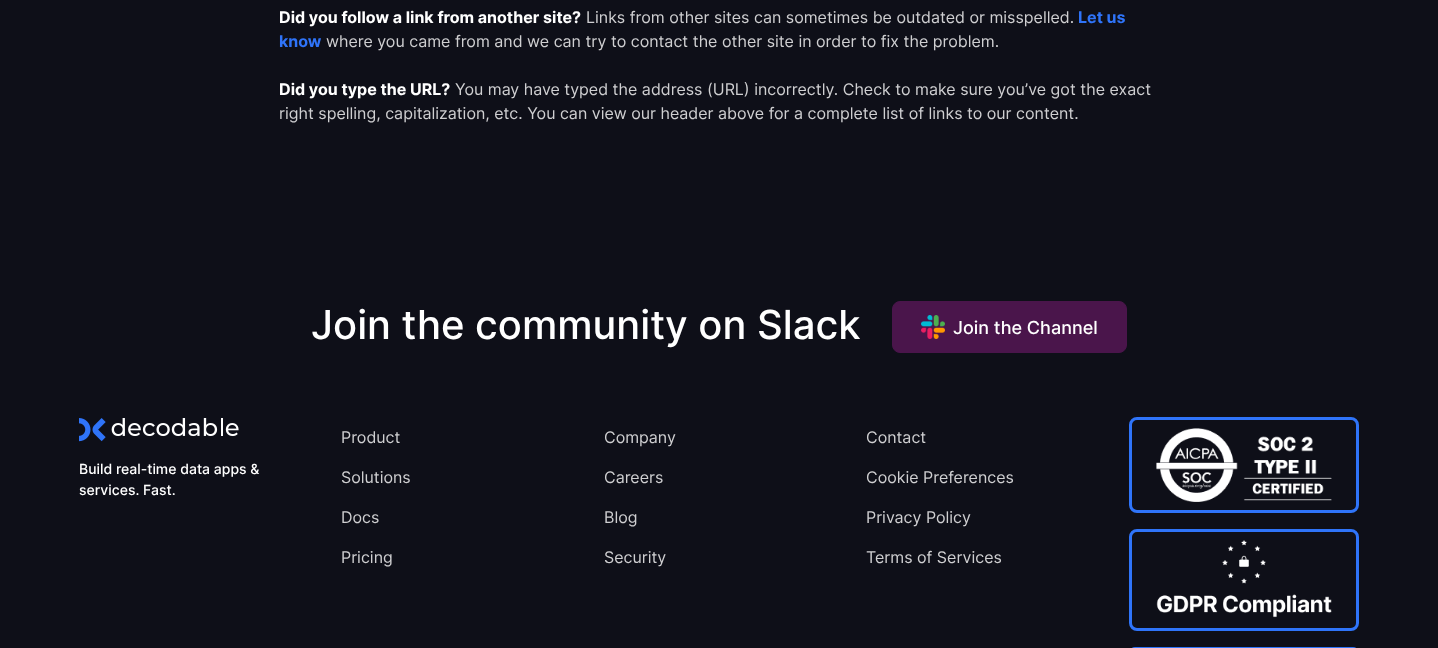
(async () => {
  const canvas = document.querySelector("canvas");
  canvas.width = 1438;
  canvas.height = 648;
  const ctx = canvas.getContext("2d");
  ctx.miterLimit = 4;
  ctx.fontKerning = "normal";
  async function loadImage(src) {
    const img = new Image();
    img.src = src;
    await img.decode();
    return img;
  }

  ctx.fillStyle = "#0e0f18";
  ctx.fillRect(0, 0, 1438, 648);
  ctx.fillStyle = "#4a154b";
  ctx.beginPath();
  ctx.roundRect(892.5, 301.5, 234, 51, 7.5);
  ctx.fill();
  ctx.strokeStyle = "#4a154b";
  ctx.stroke();
  ctx.drawImage(await loadImage("img/1.png"), 921, 315, 24, 24);
  ctx.drawImage(await loadImage("img/2.png"), 79, 418, 160, 24);
  ctx.beginPath();
  ctx.roundRect(1130.5, 418.5, 227, 93, 6.5);
  ctx.strokeStyle = "#2f74f9";
  ctx.lineWidth = 3;
  ctx.stroke();
  ctx.drawImage(await loadImage("img/3.png"), 1156, 428, 176, 74);
  ctx.beginPath();
  ctx.roundRect(1130.5, 530.5, 227, 99, 6.5);
  ctx.stroke();
  ctx.drawImage(await loadImage("img/4.png"), 1156, 540, 176, 78);
  ctx.beginPath();
  ctx.roundRect(1130.5, 648.5, 227, 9, 6.5);
  ctx.stroke();
  ctx.font = "bold 16px Inter";
  ctx.fillStyle = "#ffffff";
  ctx.fillText("Did you follow a link from another site?", 279, 23);
  ctx.font = "16px Inter";
  ctx.fillStyle = "#cfcfd1";
  ctx.fillText("Links from other sites can sometimes be outdated or misspelled.", 586, 23);
  ctx.font = "bold 16px Inter";
  ctx.fillStyle = "#2f74f9";
  ctx.fillText("Let us", 1078, 23);
  ctx.fillText("know", 279, 47);
  ctx.font = "16px Inter";
  ctx.fillStyle = "#cfcfd1";
  ctx.fillText("where you came from and we can try to contact the other site in order to fix the problem.", 326, 47);
  ctx.font = "bold 16px Inter";
  ctx.fillStyle = "#ffffff";
  ctx.fillText("Did you type the URL?", 279, 95);
  ctx.font = "16px Inter";
  ctx.fillStyle = "#cfcfd1";
  ctx.fillText("You may have typed the address (URL) incorrectly. Check to make sure you’ve got the exact", 455, 95);
  ctx.fillText("right spelling, capitalization, etc. You can view our header above for a complete list of links to our content.", 279, 119);
  ctx.font = "500 40px Inter";
  ctx.fillStyle = "#ffffff";
  ctx.fillText("Join the community on Slack", 311, 339);
  ctx.font = "500 18px Inter";
  ctx.fillText("Join the Channel", 953, 334);
  ctx.font = "500 14px Inter";
  ctx.fillText("Build real-time data apps &", 79, 474);
  ctx.fillText("services. Fast.", 79, 495);
  ctx.font = "16px Inter";
  ctx.fillStyle = "#cfcfd1";
  for (const [text, x, y] of [
    ["Product", 341, 443],
    ["Solutions", 341, 483],
    ["Docs", 341, 523],
    ["Pricing", 341, 563],
    ["Company", 604, 443],
    ["Careers", 604, 483],
    ["Blog", 604, 523],
    ["Security", 604, 563],
    ["Contact", 866, 443],
    ["Cookie Preferences", 866, 483],
    ["Privacy Policy", 866, 523],
    ["Terms of Services", 866, 563],
  ]) {
    ctx.fillText(text, x, y);
  }
})();
